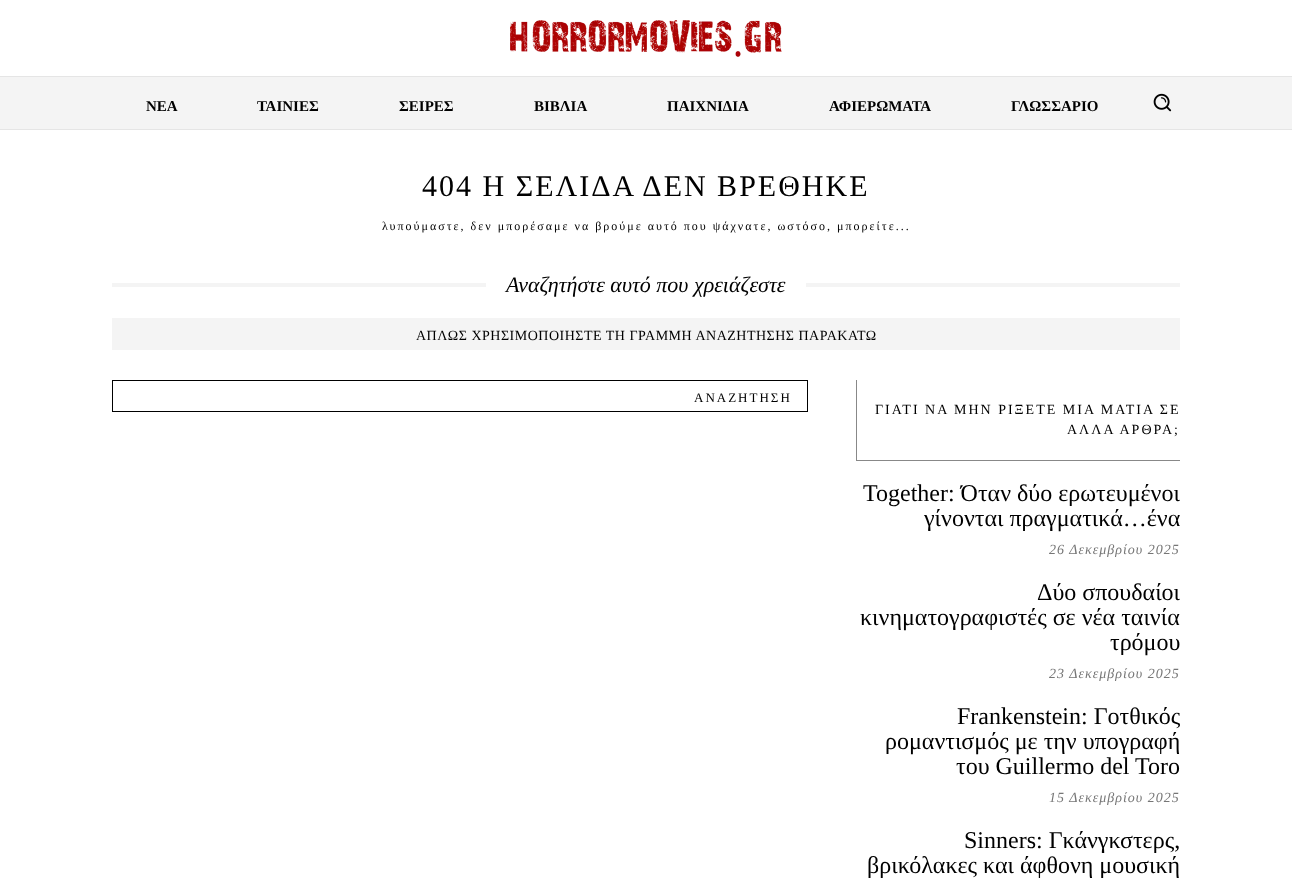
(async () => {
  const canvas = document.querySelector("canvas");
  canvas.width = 1292;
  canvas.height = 878;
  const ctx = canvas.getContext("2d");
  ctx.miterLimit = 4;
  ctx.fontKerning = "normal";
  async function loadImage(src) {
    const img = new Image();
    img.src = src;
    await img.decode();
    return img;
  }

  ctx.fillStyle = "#ffffff";
  ctx.fillRect(0, 0, 1292, 878);
  ctx.drawImage(await loadImage("img/1.png"), 510, 20, 272, 37);
  for (const [x, y, w, h, color] of [
    [0, 76, 1292, 1, "#e5e5e5"],
    [0, 77, 1292, 52, "#f4f4f4"],
    [0, 129, 1292, 1, "#e5e5e5"],
  ]) {
    ctx.fillStyle = color;
    ctx.fillRect(x, y, w, h);
  }
  ctx.drawImage(await loadImage("img/2.png"), 1153, 93, 19, 19);
  for (const [x, y, w, h, color] of [
    [112, 283, 374, 4, "#f4f4f4"],
    [806, 283, 374, 4, "#f4f4f4"],
    [112, 318, 1068, 32, "#f4f4f4"],
  ]) {
    ctx.fillStyle = color;
    ctx.fillRect(x, y, w, h);
  }
  ctx.strokeStyle = "#000000";
  ctx.strokeRect(112.5, 380.5, 695, 31);
  ctx.fillStyle = "#888888";
  ctx.fillRect(856, 460, 324, 1);
  ctx.fillRect(856, 380, 1, 81);
  ctx.font = "bold 15px Liberation Serif";
  ctx.fillStyle = "#000000";
  for (const [text, x, y] of [
    ["ΝΕΑ", 146, 111],
    ["ΤΑΙΝΙΕΣ", 257, 111],
    ["ΣΕΙΡΕΣ", 399, 111],
    ["ΒΙΒΛΙΑ", 534, 111],
    ["ΠΑΙΧΝΙΔΙΑ", 667, 111],
    ["ΑΦΙΕΡΩΜΑΤΑ", 829, 111],
    ["ΓΛΩΣΣΑΡΙΟ", 1011, 111],
  ]) {
    ctx.fillText(text, x, y);
  }
  ctx.letterSpacing = "2px";
  ctx.font = "30px Liberation Serif";
  ctx.fillText("404 Η ΣΕΛΙΔΑ ΔΕΝ ΒΡΕΘΗΚΕ", 422, 196);
  ctx.font = "12px Liberation Serif";
  ctx.fillText("λυπούμαστε, δεν μπορέσαμε να βρούμε αυτό που ψάχνατε, ωστόσο, μπορείτε...", 382, 230);
  ctx.letterSpacing = "0px";
  ctx.font = "italic 22px Liberation Serif";
  ctx.fillText("Αναζητήστε αυτό που χρειάζεστε", 506, 292);
  ctx.letterSpacing = "0.5px";
  ctx.font = "14px Liberation Serif";
  ctx.fillText("ΑΠΛΩΣ ΧΡΗΣΙΜΟΠΟΙΗΣΤΕ ΤΗ ΓΡΑΜΜΗ ΑΝΑΖΗΤΗΣΗΣ ΠΑΡΑΚΑΤΩ", 416, 340);
  ctx.letterSpacing = "2px";
  ctx.font = "13px Liberation Serif";
  ctx.fillText("ΑΝΑΖΗΤΗΣΗ", 694, 402);
  ctx.font = "14px Liberation Serif";
  ctx.fillText("ΓΙΑΤΙ ΝΑ ΜΗΝ ΡΙΞΕΤΕ ΜΙΑ ΜΑΤΙΑ ΣΕ", 875, 414);
  ctx.fillText("ΑΛΛΑ ΑΡΘΡΑ;", 1067, 434);
  ctx.letterSpacing = "0px";
  ctx.font = "24px Liberation Serif";
  ctx.fillText("Together: Όταν δύο ερωτευμένοι", 863, 501);
  ctx.fillText("γίνονται πραγματικά…ένα", 924, 526);
  ctx.letterSpacing = "1px";
  ctx.font = "italic 14px Liberation Serif";
  ctx.fillStyle = "#767676";
  ctx.fillText("26 Δεκεμβρίου 2025", 1049, 554);
  ctx.letterSpacing = "0px";
  ctx.font = "24px Liberation Serif";
  ctx.fillStyle = "#000000";
  for (const [text, x, y] of [
    ["Δύο σπουδαίοι", 1037, 600],
    ["κινηματογραφιστές σε νέα ταινία", 860, 625],
    ["τρόμου", 1110, 650],
  ]) {
    ctx.fillText(text, x, y);
  }
  ctx.letterSpacing = "1px";
  ctx.font = "italic 14px Liberation Serif";
  ctx.fillStyle = "#767676";
  ctx.fillText("23 Δεκεμβρίου 2025", 1049, 678);
  ctx.letterSpacing = "0px";
  ctx.font = "24px Liberation Serif";
  ctx.fillStyle = "#000000";
  for (const [text, x, y] of [
    ["Frankenstein: Γοτθικός", 957, 724],
    ["ρομαντισμός με την υπογραφή", 885, 749],
    ["του Guillermo del Toro", 956, 774],
  ]) {
    ctx.fillText(text, x, y);
  }
  ctx.letterSpacing = "1px";
  ctx.font = "italic 14px Liberation Serif";
  ctx.fillStyle = "#767676";
  ctx.fillText("15 Δεκεμβρίου 2025", 1049, 802);
  ctx.letterSpacing = "0px";
  ctx.font = "24px Liberation Serif";
  ctx.fillStyle = "#000000";
  ctx.fillText("Sinners: Γκάνγκστερς,", 964, 848);
  ctx.fillText("βρικόλακες και άφθονη μουσική", 867, 873);
})();
